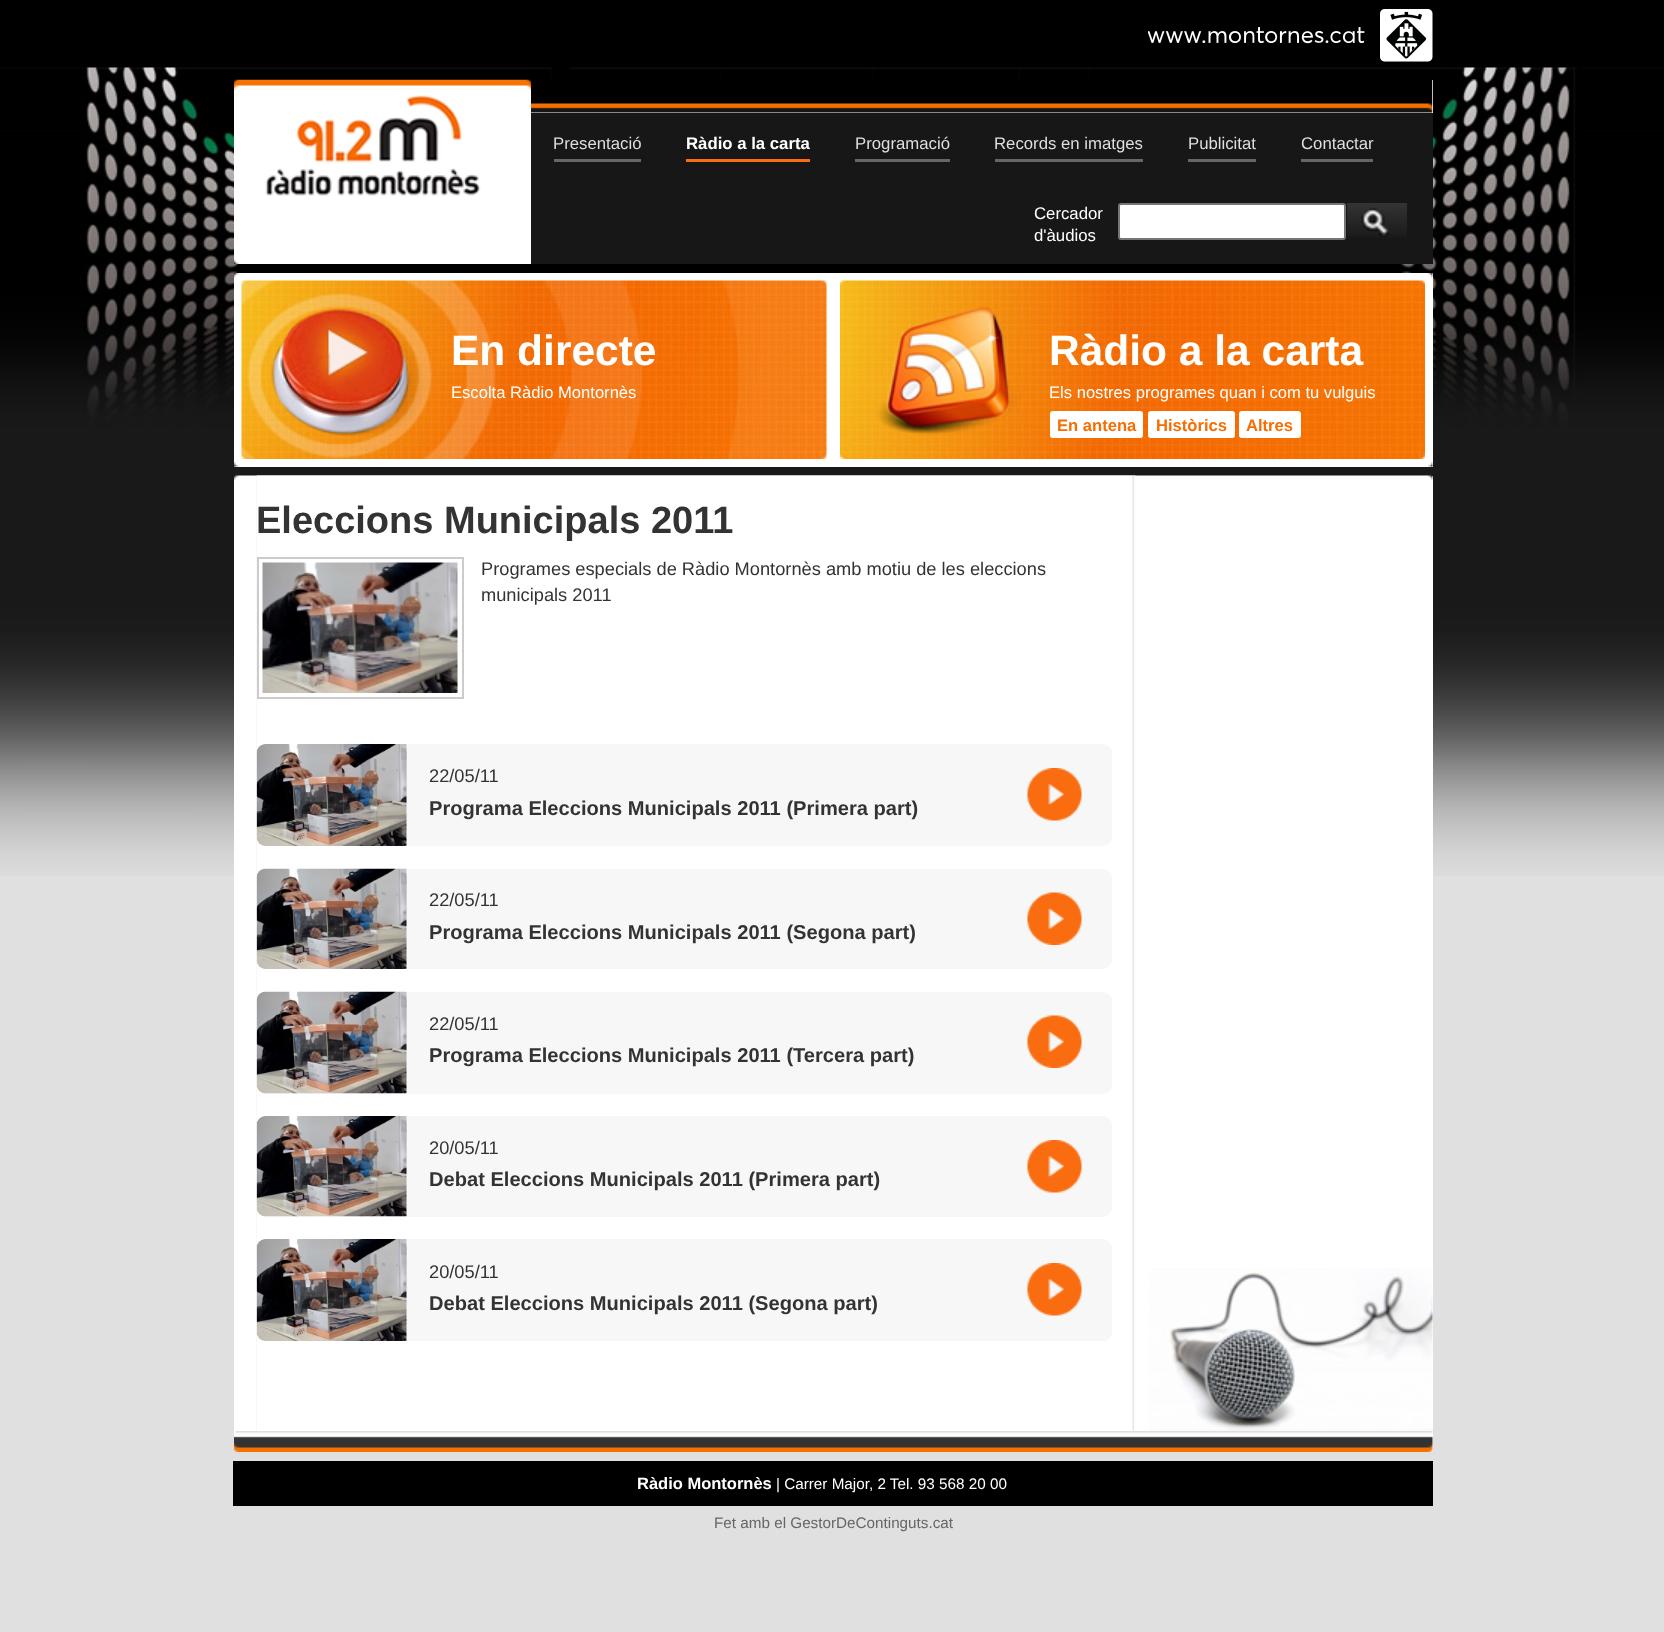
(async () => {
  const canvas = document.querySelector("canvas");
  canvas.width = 1664;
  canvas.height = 1632;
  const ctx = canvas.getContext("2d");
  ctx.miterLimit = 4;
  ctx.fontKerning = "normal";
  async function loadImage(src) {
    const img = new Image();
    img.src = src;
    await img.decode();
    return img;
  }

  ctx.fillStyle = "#e0e0e0";
  ctx.fillRect(0, 0, 1664, 1632);
  ctx.fillStyle = "#000000";
  ctx.fillRect(0, 0, 1664, 68);
  ctx.drawImage(await loadImage("img/1.png"), 1148, 9, 285, 53);
  ctx.drawImage(await loadImage("img/2.png"), 0, 67, 1664, 809);
  ctx.drawImage(await loadImage("img/3.png"), 84, 67, 1498, 376);
  ctx.fillStyle = "#ffffff";
  ctx.fillRect(234, 80, 1199, 179);
  ctx.drawImage(await loadImage("img/4.png"), 234, 259, 297, 5);
  ctx.drawImage(await loadImage("img/5.png"), 234, 79, 297, 117);
  ctx.drawImage(await loadImage("img/6.png"), 531, 80, 902, 33);
  for (const [x, y, w, h, color] of [
    [531, 113, 902, 151, "#171717"],
    [554, 159, 87, 3, "#666666"],
    [686, 159, 124, 3, "#f96c0f"],
    [855, 159, 95, 3, "#666666"],
    [995, 159, 148, 3, "#666666"],
    [1188, 159, 68, 3, "#666666"],
    [1301, 159, 72, 3, "#666666"],
  ]) {
    ctx.fillStyle = color;
    ctx.fillRect(x, y, w, h);
  }
  ctx.fillStyle = "#ffffff";
  ctx.beginPath();
  ctx.roundRect(1119, 204, 226, 35, 2);
  ctx.fill();
  ctx.strokeStyle = "#767676";
  ctx.lineWidth = 2;
  ctx.stroke();
  ctx.drawImage(await loadImage("img/7.png"), 1347, 203, 60, 34);
  ctx.fillRect(234, 273, 1199, 194);
  ctx.drawImage(await loadImage("img/8.png"), 234, 273, 1199, 5);
  ctx.drawImage(await loadImage("img/9.png"), 234, 461, 1199, 6);
  ctx.drawImage(await loadImage("img/10.png"), 241, 280, 586, 179);
  ctx.drawImage(await loadImage("img/11.png"), 840, 280, 585, 179);
  ctx.beginPath();
  ctx.roundRect(1050, 411, 93, 27, 3);
  ctx.fill();
  ctx.beginPath();
  ctx.roundRect(1148, 411, 87, 27, 3);
  ctx.fill();
  ctx.beginPath();
  ctx.roundRect(1239, 411, 62, 27, 3);
  ctx.fill();
  ctx.fillRect(234, 476, 1199, 976);
  ctx.drawImage(await loadImage("img/12.png"), 234, 475, 1199, 6);
  ctx.drawImage(await loadImage("img/13.png"), 234, 1431, 1199, 21);
  ctx.drawImage(await loadImage("img/14.png"), 1149, 1268, 284, 163);
  ctx.drawImage(await loadImage("img/15.png"), 256, 475, 880, 956);
  ctx.strokeStyle = "#cccccc";
  ctx.strokeRect(258, 558, 205, 140);
  ctx.drawImage(await loadImage("img/16.png"), 262, 562, 196, 131);
  ctx.fillStyle = "#f7f7f7";
  ctx.beginPath();
  ctx.roundRect(257, 744, 855, 102, 9);
  ctx.fill();
  ctx.drawImage(await loadImage("img/17.png"), 256, 744, 151, 102);
  ctx.drawImage(await loadImage("img/18.png"), 1027, 768, 55, 53);
  ctx.beginPath();
  ctx.roundRect(257, 869, 855, 100, 9);
  ctx.fill();
  ctx.drawImage(await loadImage("img/19.png"), 256, 868, 151, 101);
  ctx.drawImage(await loadImage("img/20.png"), 1027, 892, 55, 53);
  ctx.beginPath();
  ctx.roundRect(257, 992, 855, 102, 9);
  ctx.fill();
  ctx.drawImage(await loadImage("img/21.png"), 256, 991, 151, 103);
  ctx.drawImage(await loadImage("img/20.png"), 1027, 1015, 55, 53);
  ctx.beginPath();
  ctx.roundRect(257, 1116, 855, 101, 9);
  ctx.fill();
  ctx.drawImage(await loadImage("img/22.png"), 256, 1116, 151, 101);
  ctx.drawImage(await loadImage("img/18.png"), 1027, 1140, 55, 53);
  ctx.beginPath();
  ctx.roundRect(257, 1239, 855, 102, 9);
  ctx.fill();
  ctx.drawImage(await loadImage("img/17.png"), 256, 1239, 151, 102);
  ctx.drawImage(await loadImage("img/18.png"), 1027, 1263, 55, 53);
  ctx.fillStyle = "#000000";
  ctx.fillRect(233, 1461, 1200, 45);
  ctx.font = "16.75px Liberation Sans";
  ctx.fillStyle = "#dfdfdf";
  ctx.fillText("Presentació", 553, 149);
  ctx.font = "bold 16.75px Liberation Sans";
  ctx.fillStyle = "#ffffff";
  ctx.fillText("Ràdio a la carta", 686, 149);
  ctx.font = "16.75px Liberation Sans";
  ctx.fillStyle = "#dfdfdf";
  for (const [text, x, y] of [
    ["Programació", 855, 149],
    ["Records en imatges", 994, 149],
    ["Publicitat", 1188, 149],
    ["Contactar", 1301, 149],
  ]) {
    ctx.fillText(text, x, y);
  }
  ctx.fillStyle = "#ffffff";
  ctx.fillText("Cercador", 1034, 219);
  ctx.fillText("d'àudios", 1034, 241);
  ctx.font = "bold 42.5px Liberation Sans";
  ctx.fillText("En directe", 451, 365);
  ctx.font = "16.6px Liberation Sans";
  ctx.fillText("Escolta Ràdio Montornès", 451, 398);
  ctx.font = "bold 42.5px Liberation Sans";
  ctx.fillText("Ràdio a la carta", 1049, 365);
  ctx.font = "16.6px Liberation Sans";
  ctx.fillText("Els nostres programes quan i com tu vulguis", 1049, 398);
  ctx.font = "bold 16.6px Liberation Sans";
  ctx.fillStyle = "#f56e03";
  for (const [text, x, y] of [
    ["En antena", 1057, 431],
    ["Històrics", 1156, 431],
    ["Altres", 1246, 431],
  ]) {
    ctx.fillText(text, x, y);
  }
  ctx.font = "bold 38px Liberation Sans";
  ctx.fillStyle = "#333333";
  ctx.fillText("Eleccions Municipals 2011", 256, 533);
  ctx.font = "18.25px Liberation Sans";
  for (const [text, x, y] of [
    ["Programes especials de Ràdio Montornès amb motiu de les eleccions", 481, 575],
    ["municipals 2011", 481, 601],
    ["22/05/11", 429, 782],
  ]) {
    ctx.fillText(text, x, y);
  }
  ctx.font = "bold 20.1px Liberation Sans";
  ctx.fillText("Programa Eleccions Municipals 2011 (Primera part)", 429, 815);
  ctx.font = "18.25px Liberation Sans";
  ctx.fillText("22/05/11", 429, 906);
  ctx.font = "bold 20.1px Liberation Sans";
  ctx.fillText("Programa Eleccions Municipals 2011 (Segona part)", 429, 939);
  ctx.font = "18.25px Liberation Sans";
  ctx.fillText("22/05/11", 429, 1030);
  ctx.font = "bold 20.1px Liberation Sans";
  ctx.fillText("Programa Eleccions Municipals 2011 (Tercera part)", 429, 1062);
  ctx.font = "18.25px Liberation Sans";
  ctx.fillText("20/05/11", 429, 1154);
  ctx.font = "bold 20.1px Liberation Sans";
  ctx.fillText("Debat Eleccions Municipals 2011 (Primera part)", 429, 1186);
  ctx.font = "18.25px Liberation Sans";
  ctx.fillText("20/05/11", 429, 1278);
  ctx.font = "bold 20.1px Liberation Sans";
  ctx.fillText("Debat Eleccions Municipals 2011 (Segona part)", 429, 1310);
  ctx.font = "bold 16.5px Liberation Sans";
  ctx.fillStyle = "#ffffff";
  ctx.fillText("Ràdio Montornès", 637, 1489);
  ctx.font = "15.25px Liberation Sans";
  ctx.fillText("| Carrer Major, 2 Tel. 93 568 20 00", 776, 1489);
  ctx.fillStyle = "#666666";
  ctx.fillText("Fet amb el GestorDeContinguts.cat", 714, 1528);
})();
